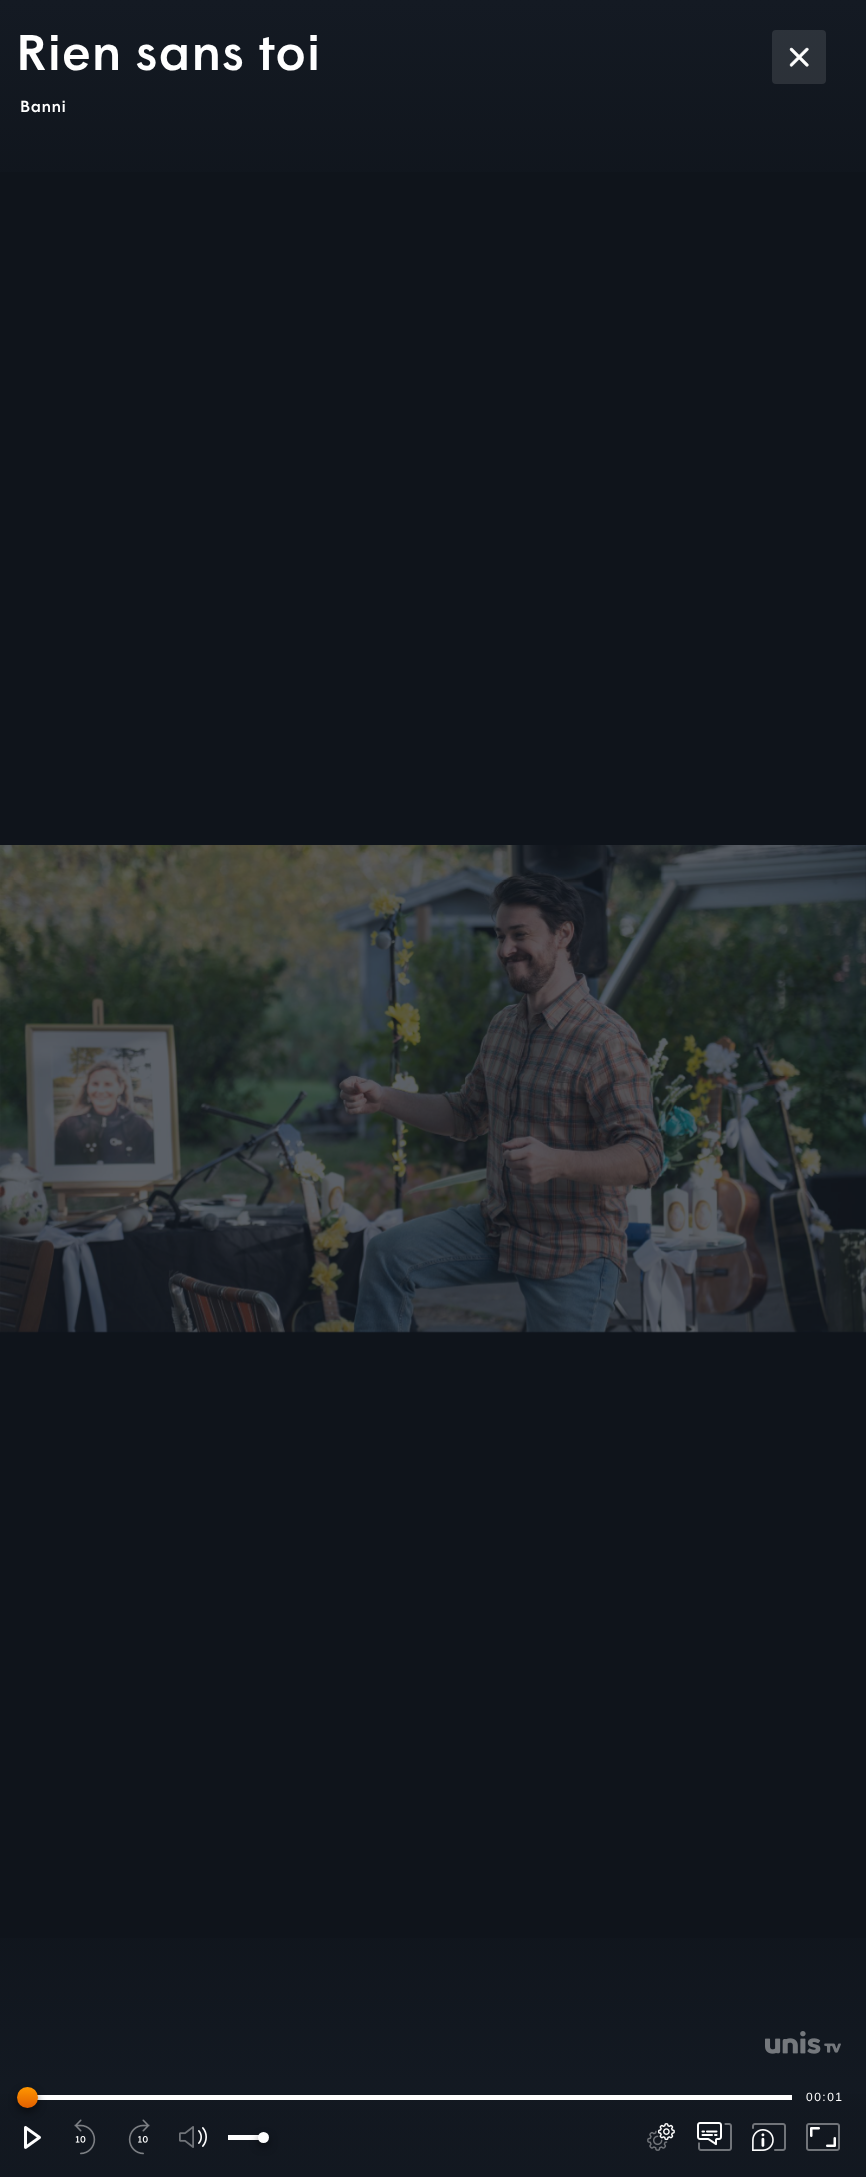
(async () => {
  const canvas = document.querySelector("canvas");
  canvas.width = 866;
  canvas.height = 2177;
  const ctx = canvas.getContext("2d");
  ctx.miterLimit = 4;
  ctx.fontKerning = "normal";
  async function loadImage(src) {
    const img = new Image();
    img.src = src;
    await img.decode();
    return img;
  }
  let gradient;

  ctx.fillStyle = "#0f141b";
  ctx.fillRect(0, 0, 866, 2177);
  gradient = ctx.createLinearGradient(433, 0, 433, 250);
  gradient.addColorStop(0, "#141a23");
  gradient.addColorStop(1, "#0f141b");
  ctx.fillStyle = gradient;
  ctx.fillRect(0, 0, 866, 172);
  ctx.fillStyle = "rgba(255, 255, 255, 0.11)";
  ctx.beginPath();
  ctx.roundRect(772, 30, 54, 54, 4);
  ctx.fill();
  ctx.drawImage(await loadImage("img/1.png"), 789, 47, 20, 20);
  ctx.drawImage(await loadImage("img/2.png"), 0, 845, 866, 488);
  gradient = ctx.createLinearGradient(433, 2081, 433, 2177);
  gradient.addColorStop(0, "#0f141b");
  gradient.addColorStop(1, "#050608");
  ctx.fillStyle = gradient;
  ctx.fillRect(0, 2094, 866, 83);
  gradient = ctx.createLinearGradient(433, 2177, 433, 1863);
  gradient.addColorStop(0, "rgba(22, 29, 39, 0.8)");
  gradient.addColorStop(1, "rgba(22, 29, 39, 0)");
  ctx.fillStyle = gradient;
  ctx.fillRect(0, 1938, 866, 239);
  ctx.drawImage(await loadImage("img/3.png"), 765, 2031, 76, 23);
  ctx.fillStyle = "#ffffff";
  ctx.fillRect(37, 2095, 755, 5);
  ctx.drawImage(await loadImage("img/4.png"), 24, 2126, 17, 23);
  ctx.fillStyle = "rgba(0, 0, 0, 0.5)";
  ctx.filter = "blur(4.5px)";
  ctx.beginPath();
  ctx.roundRect(17, 2091, 21, 21, 10.5);
  ctx.fill();
  ctx.filter = "none";
  gradient = ctx.createLinearGradient(28, 2087, 28, 2108);
  gradient.addColorStop(0, "#ff9700");
  gradient.addColorStop(1, "#e25f00");
  ctx.fillStyle = gradient;
  ctx.beginPath();
  ctx.arc(27.5, 2097.5, 10.5, 0, Math.PI * 2);
  ctx.fill();
  ctx.drawImage(await loadImage("img/5.png"), 74, 2119, 22, 36);
  ctx.drawImage(await loadImage("img/6.png"), 128, 2119, 22, 36);
  ctx.drawImage(await loadImage("img/7.png"), 179, 2126, 28, 22);
  ctx.fillStyle = "#ffffff";
  ctx.fillRect(228, 2135, 35, 5);
  ctx.fillStyle = "rgba(0, 0, 0, 0.5)";
  ctx.filter = "blur(4.5px)";
  ctx.beginPath();
  ctx.roundRect(258, 2136, 11, 11, 5.5);
  ctx.fill();
  ctx.filter = "none";
  ctx.fillStyle = "#ffffff";
  ctx.beginPath();
  ctx.arc(263.5, 2137.5, 5.5, 0, Math.PI * 2);
  ctx.fill();
  ctx.drawImage(await loadImage("img/8.png"), 647, 2123, 28, 28);
  ctx.drawImage(await loadImage("img/9.png"), 697, 2122, 35, 29);
  ctx.drawImage(await loadImage("img/10.png"), 752, 2123, 34, 28);
  ctx.drawImage(await loadImage("img/11.png"), 806, 2123, 34, 28);
  ctx.letterSpacing = "0.75px";
  ctx.font = "500 50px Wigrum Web";
  ctx.fillText("Rien sans toi", 16, 70);
  ctx.letterSpacing = "0.5px";
  ctx.font = "500 16px Wigrum Web";
  ctx.fillText("Banni", 20, 112);
  ctx.letterSpacing = "1.5px";
  ctx.font = "12px Liberation Sans";
  ctx.fillText("00:01", 806, 2101);
})();
